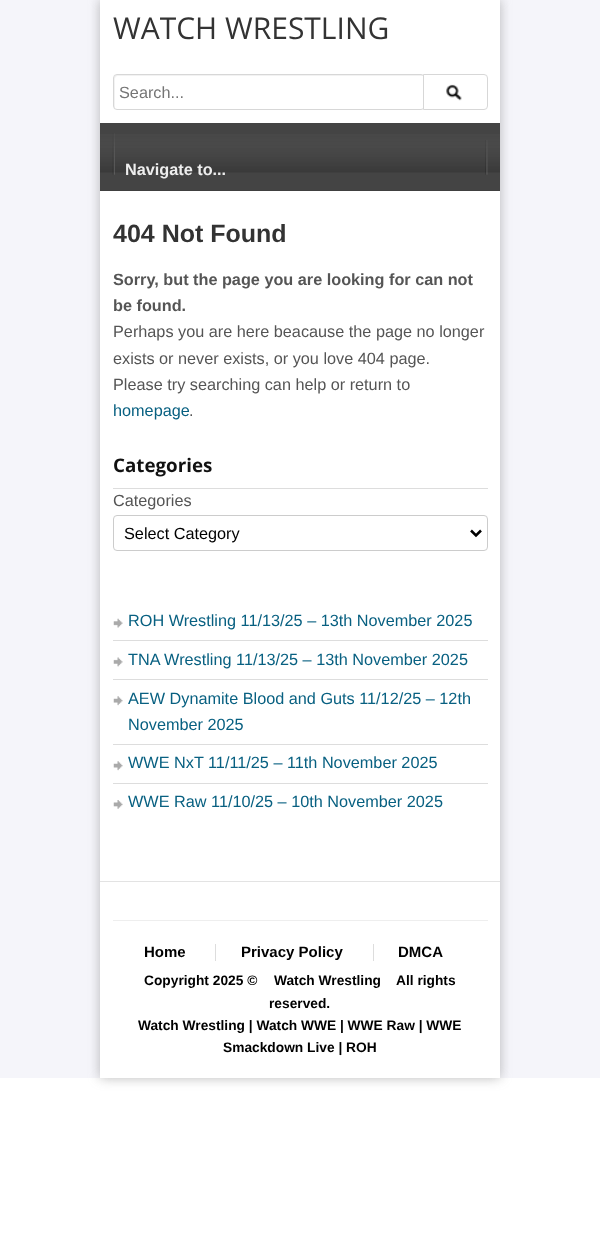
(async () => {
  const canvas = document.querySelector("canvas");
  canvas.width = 600;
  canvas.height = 1254;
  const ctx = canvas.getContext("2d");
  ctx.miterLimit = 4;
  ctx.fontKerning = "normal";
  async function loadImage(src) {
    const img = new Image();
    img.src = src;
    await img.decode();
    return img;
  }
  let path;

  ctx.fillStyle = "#ffffff";
  ctx.fillRect(0, 0, 600, 1254);
  ctx.fillStyle = "#f5f5fa";
  ctx.fillRect(0, 0, 600, 1078);
  ctx.fillStyle = "rgba(120, 120, 120, 0.5)";
  ctx.filter = "blur(6px)";
  ctx.beginPath();
  ctx.rect(100, 0, 400, 1078);
  ctx.fill();
  ctx.filter = "none";
  ctx.fillStyle = "#ffffff";
  ctx.fillRect(100, 0, 400, 1078);
  ctx.fillStyle = "#f2f2f2";
  path = new Path2D("M118 76H422H424C423 76 422 75 422 75H116C115 75 114 76 114 78V106C114 107 114 108 115 109V84C115 81 114 76 118 76Z");
  ctx.fill(path);
  ctx.beginPath();
  ctx.roundRect(113.5, 74.5, 311, 35, 3.5);
  ctx.strokeStyle = "#d7d7d7";
  ctx.stroke();
  ctx.fillStyle = "#ffffff";
  ctx.beginPath();
  ctx.roundRect(423.5, 74.5, 64, 35, [0, 3.5, 3.5, 0]);
  ctx.fill();
  ctx.stroke();
  ctx.drawImage(await loadImage("img/1.png"), 446, 84, 16, 17);
  ctx.fillStyle = "#444444";
  ctx.fillRect(100, 123, 400, 67);
  ctx.drawImage(await loadImage("img/2.png"), 100, 134, 400, 39);
  ctx.fillStyle = "#404040";
  ctx.fillRect(100, 190, 400, 1);
  ctx.drawImage(await loadImage("img/3.png"), 485, 140, 3, 35);
  ctx.drawImage(await loadImage("img/4.png"), 112, 133, 3, 42);
  ctx.fillStyle = "#dddddd";
  ctx.fillRect(113, 488, 375, 1);
  ctx.beginPath();
  ctx.roundRect(113.5, 515.5, 374, 35, 3.5);
  ctx.strokeStyle = "#cccccc";
  ctx.stroke();
  path = new Path2D("M471 530.5L476 535.5L481 530.5");
  ctx.strokeStyle = "#000000";
  ctx.lineWidth = 2.5;
  ctx.stroke(path);
  ctx.drawImage(await loadImage("img/5.png"), 113, 618, 10, 10);
  ctx.fillRect(113, 640, 375, 1);
  ctx.drawImage(await loadImage("img/6.png"), 113, 657, 10, 10);
  ctx.fillRect(113, 679, 375, 1);
  ctx.drawImage(await loadImage("img/7.png"), 113, 696, 10, 10);
  ctx.fillRect(113, 744, 375, 1);
  ctx.drawImage(await loadImage("img/8.png"), 113, 761, 10, 10);
  ctx.fillRect(113, 783, 375, 1);
  ctx.drawImage(await loadImage("img/9.png"), 113, 800, 10, 9);
  for (const [x, y, w, h, color] of [
    [100, 881, 400, 1, "#e3e3e3"],
    [113, 920, 375, 1, "#eeeeee"],
    [215, 944, 1, 17, "#dddddd"],
    [373, 944, 1, 17, "#dddddd"],
  ]) {
    ctx.fillStyle = color;
    ctx.fillRect(x, y, w, h);
  }
  ctx.font = "30px Open Sans";
  ctx.fillStyle = "#333333";
  ctx.fillText("WATCH WRESTLING", 113, 39);
  ctx.font = "16.25px Liberation Sans";
  ctx.fillStyle = "#757575";
  ctx.fillText("Search...", 119, 98);
  ctx.font = "bold 16.25px Liberation Sans";
  ctx.fillStyle = "#eeeeee";
  ctx.fillText("Navigate to...", 125, 175);
  ctx.font = "bold 25px Liberation Sans";
  ctx.fillStyle = "#333333";
  ctx.fillText("404 Not Found", 113, 242);
  ctx.font = "bold 16.25px Liberation Sans";
  ctx.fillStyle = "#555555";
  ctx.fillText("Sorry, but the page you are looking for can not", 113, 285);
  ctx.fillText("be found.", 113, 311);
  ctx.font = "16.25px Liberation Sans";
  for (const [text, x, y] of [
    ["Perhaps you are here beacause the page no longer", 113, 337],
    ["exists or never exists, or you love 404 page.", 113, 364],
    ["Please try searching can help or return to", 113, 390],
  ]) {
    ctx.fillText(text, x, y);
  }
  ctx.fillStyle = "#086081";
  ctx.fillText("homepage", 113, 416);
  ctx.fillStyle = "#555555";
  ctx.fillText(".", 189, 416);
  ctx.font = "bold 18.75px Open Sans";
  ctx.fillStyle = "#111111";
  ctx.fillText("Categories", 113, 472);
  ctx.font = "16.25px Liberation Sans";
  ctx.fillStyle = "#555555";
  ctx.fillText("Categories", 113, 506);
  ctx.fillStyle = "#000000";
  ctx.fillText("Select Category", 124, 539);
  ctx.fillStyle = "#086081";
  for (const [text, x, y] of [
    ["ROH Wrestling 11/13/25 – 13th November 2025", 128, 626],
    ["TNA Wrestling 11/13/25 – 13th November 2025", 128, 665],
    ["AEW Dynamite Blood and Guts 11/12/25 – 12th", 128, 704],
    ["November 2025", 128, 730],
    ["WWE NxT 11/11/25 – 11th November 2025", 128, 768],
    ["WWE Raw 11/10/25 – 10th November 2025", 128, 807],
  ]) {
    ctx.fillText(text, x, y);
  }
  ctx.font = "bold 15px Liberation Sans";
  ctx.fillStyle = "#000000";
  for (const [text, x, y] of [
    ["Home", 144, 957],
    ["Privacy Policy", 241, 957],
    ["DMCA", 398, 957],
  ]) {
    ctx.fillText(text, x, y);
  }
  ctx.font = "bold 13.75px Liberation Sans";
  for (const [text, x, y] of [
    ["Copyright 2025 ©", 144, 985],
    ["Watch Wrestling", 274, 985],
    ["All rights", 396, 985],
    ["reserved.", 269, 1008],
    ["Watch Wrestling | Watch WWE | WWE Raw | WWE", 138, 1030],
    ["Smackdown Live | ROH", 223, 1052],
  ]) {
    ctx.fillText(text, x, y);
  }
})();
